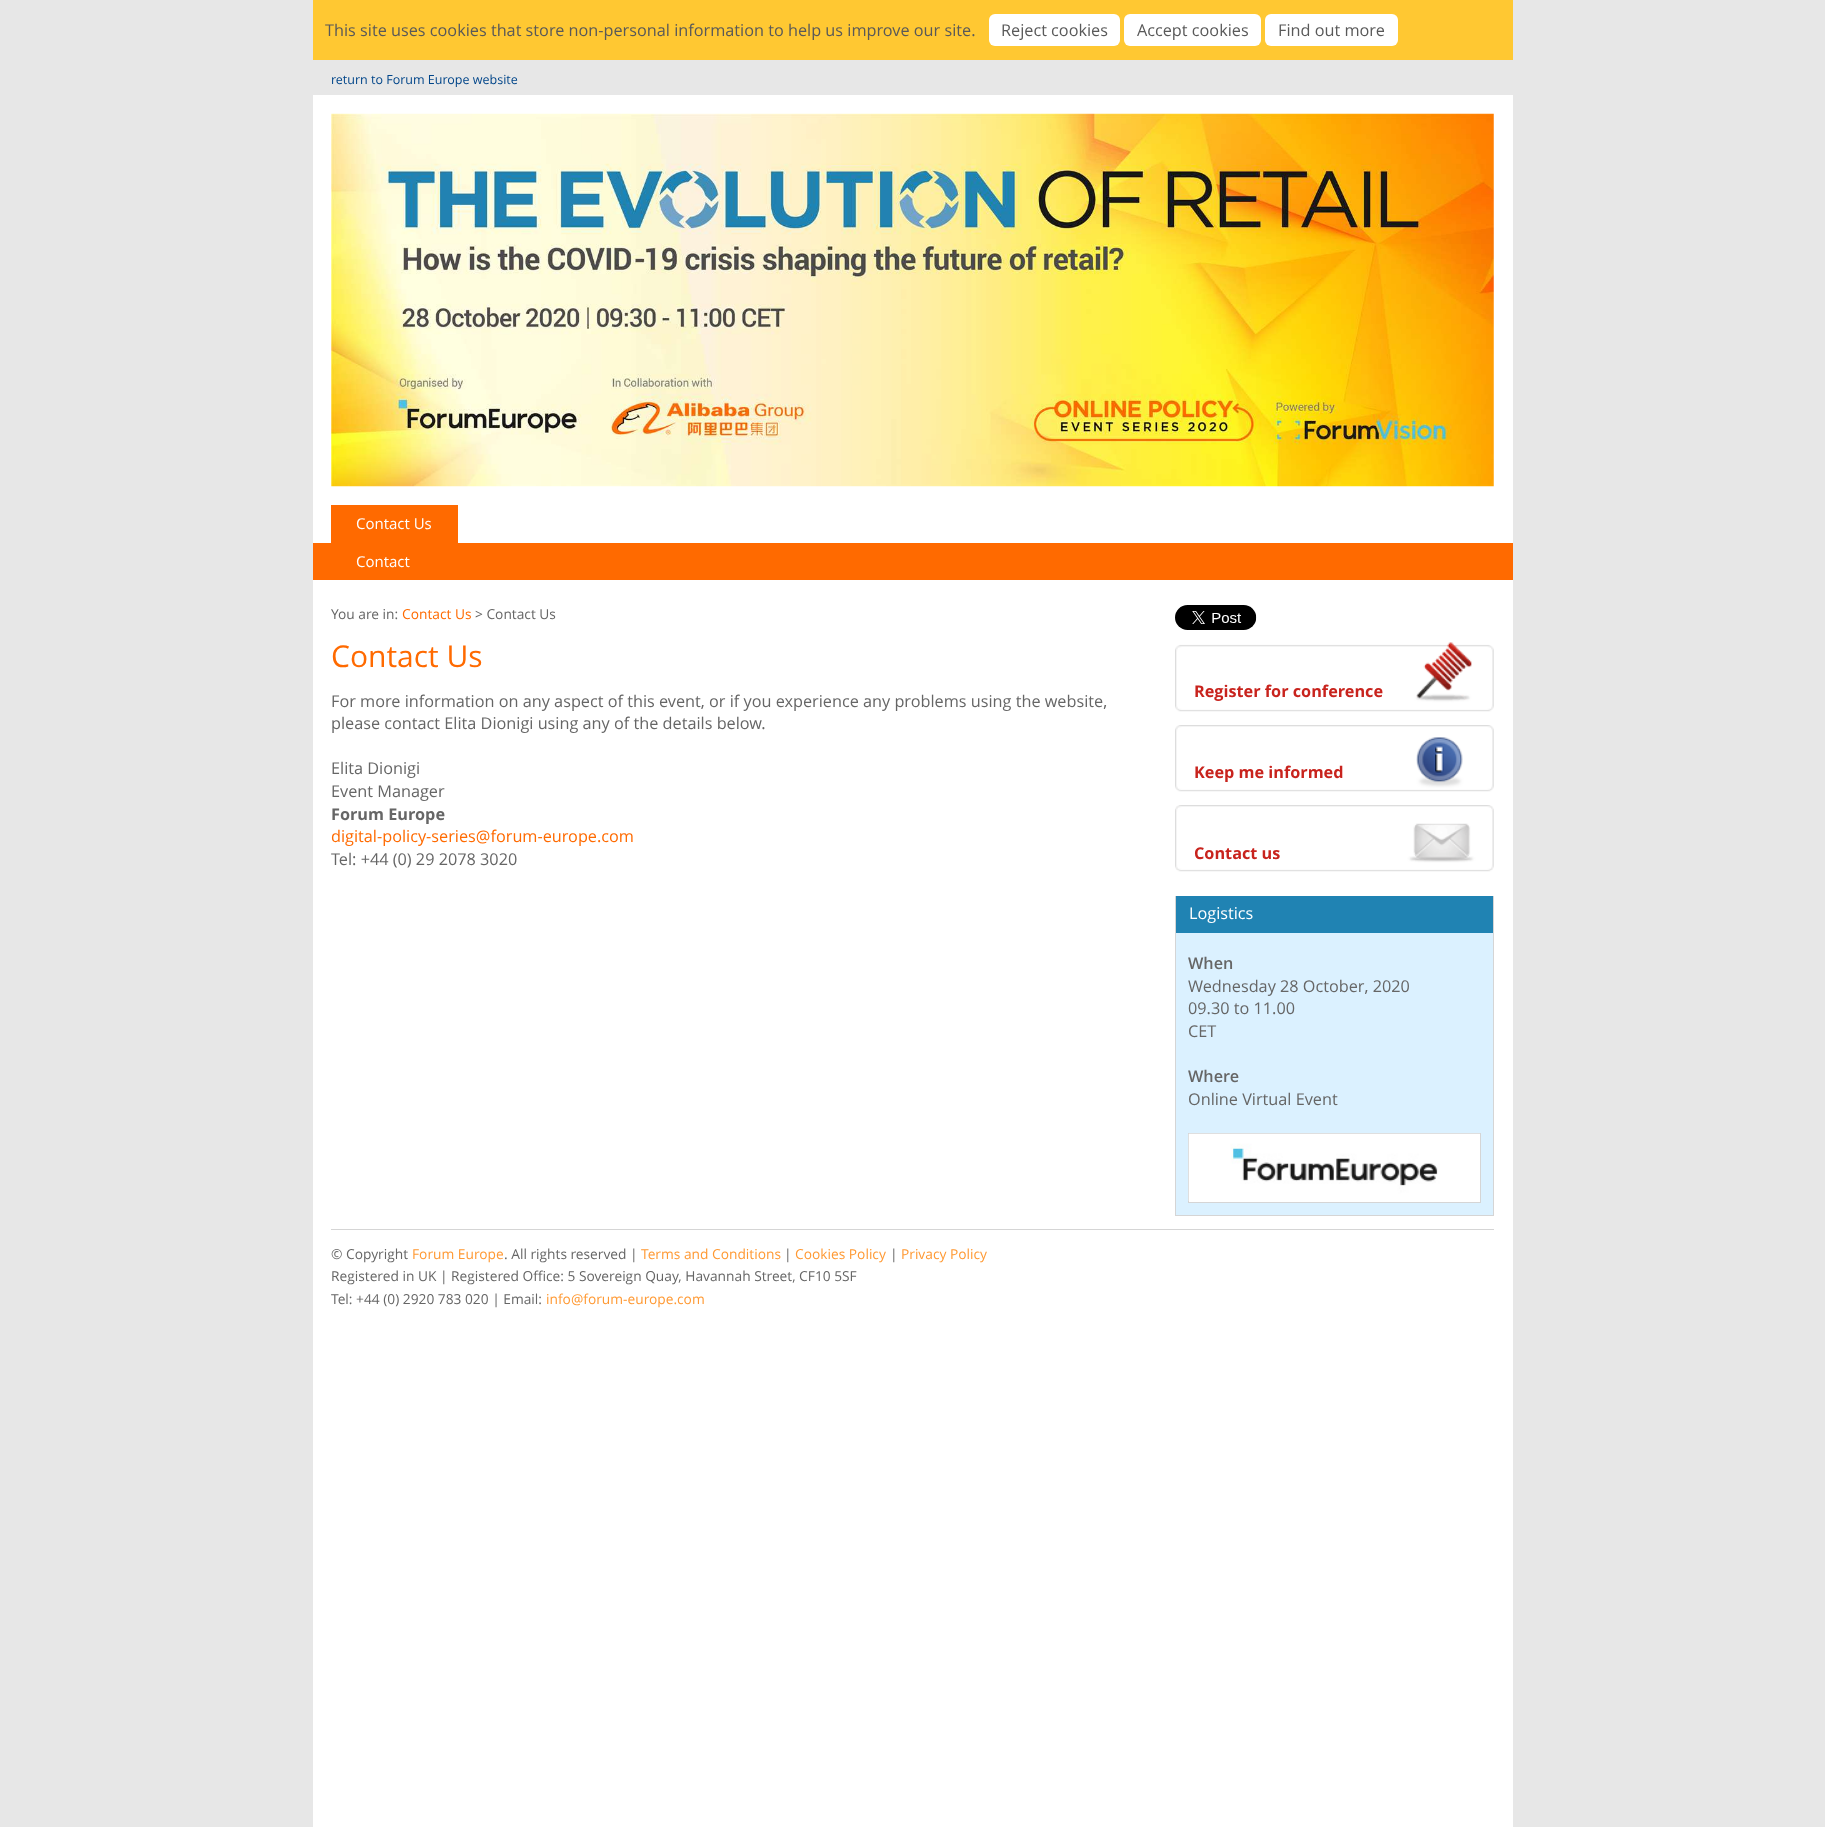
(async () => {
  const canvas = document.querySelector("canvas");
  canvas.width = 1825;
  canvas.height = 1827;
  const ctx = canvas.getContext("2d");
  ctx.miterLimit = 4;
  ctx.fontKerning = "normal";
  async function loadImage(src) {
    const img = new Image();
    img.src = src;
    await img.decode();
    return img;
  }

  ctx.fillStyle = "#e7e7e7";
  ctx.fillRect(0, 0, 1825, 1827);
  ctx.fillStyle = "#ffffff";
  ctx.fillRect(313, 95, 1200, 1732);
  ctx.fillStyle = "#ffc832";
  ctx.fillRect(313, 0, 1200, 60);
  ctx.fillStyle = "#ffffff";
  ctx.beginPath();
  ctx.roundRect(989, 14, 131, 32, 6);
  ctx.fill();
  ctx.beginPath();
  ctx.roundRect(1124, 14, 137, 32, 6);
  ctx.fill();
  ctx.beginPath();
  ctx.roundRect(1265, 14, 133, 32, 6);
  ctx.fill();
  ctx.drawImage(await loadImage("img/1.png"), 331, 113, 1163, 374);
  ctx.fillStyle = "#ff6a00";
  ctx.fillRect(331, 505, 127, 38);
  ctx.fillRect(313, 543, 1200, 37);
  ctx.drawImage(await loadImage("img/2.png"), 1175, 605, 82, 25);
  ctx.drawImage(await loadImage("img/3.png"), 1175, 642, 319, 70);
  ctx.drawImage(await loadImage("img/4.png"), 1175, 725, 319, 67);
  ctx.drawImage(await loadImage("img/5.png"), 1175, 805, 319, 67);
  for (const [x, y, w, h, color] of [
    [1176, 933, 317, 282, "#dbf1ff"],
    [1493, 896, 1, 320, "#d5d5d5"],
    [1175, 1215, 319, 1, "#d5d5d5"],
    [1175, 896, 1, 320, "#d5d5d5"],
    [1176, 896, 317, 37, "#2083b3"],
    [1189, 1201, 291, 1, "#ffffff"],
  ]) {
    ctx.fillStyle = color;
    ctx.fillRect(x, y, w, h);
  }
  ctx.strokeStyle = "#d5d5d5";
  ctx.strokeRect(1188.5, 1133.5, 292, 69);
  ctx.drawImage(await loadImage("img/6.png"), 1188, 1133, 292, 68);
  ctx.fillStyle = "#d5d5d5";
  ctx.fillRect(331, 1229, 1163, 1);
  ctx.font = "16.25px Open Sans";
  ctx.fillStyle = "#595959";
  for (const [text, x, y] of [
    ["This site uses cookies that store non-personal information to help us improve our site.", 325, 36],
    ["Reject cookies", 1001, 36],
    ["Accept cookies", 1137, 36],
    ["Find out more", 1278, 36],
  ]) {
    ctx.fillText(text, x, y);
  }
  ctx.font = "12.5px Open Sans";
  ctx.fillStyle = "#004589";
  ctx.fillText("return to Forum Europe website", 331, 84);
  ctx.font = "15px Open Sans";
  ctx.fillStyle = "#ffffff";
  ctx.fillText("Contact Us", 356, 529);
  ctx.fillText("Contact", 356, 567);
  ctx.font = "13.75px Open Sans";
  ctx.fillStyle = "#666666";
  ctx.fillText("You are in:", 331, 619);
  ctx.fillStyle = "#ff6a00";
  ctx.fillText("Contact Us", 402, 619);
  ctx.fillStyle = "#666666";
  ctx.fillText("> Contact Us", 475, 619);
  ctx.font = "30px Open Sans";
  ctx.fillStyle = "#ff6a00";
  ctx.fillText("Contact Us", 331, 667);
  ctx.font = "16.25px Open Sans";
  ctx.fillStyle = "#666666";
  for (const [text, x, y] of [
    ["For more information on any aspect of this event, or if you experience any problems using the website,", 331, 707],
    ["please contact Elita Dionigi using any of the details below.", 331, 729],
    ["Elita Dionigi", 331, 774],
    ["Event Manager", 331, 797],
  ]) {
    ctx.fillText(text, x, y);
  }
  ctx.font = "bold 16.25px Open Sans";
  ctx.fillText("Forum Europe", 331, 820);
  ctx.font = "16.25px Open Sans";
  ctx.fillStyle = "#ff6a00";
  ctx.fillText("digital-policy-series@forum-europe.com", 331, 842);
  ctx.fillStyle = "#666666";
  ctx.fillText("Tel: +44 (0) 29 2078 3020", 331, 865);
  ctx.font = "bold 16.25px Open Sans";
  ctx.fillStyle = "#c8231d";
  for (const [text, x, y] of [
    ["Register for conference", 1194, 697],
    ["Keep me informed", 1194, 778],
    ["Contact us", 1194, 859],
  ]) {
    ctx.fillText(text, x, y);
  }
  ctx.font = "16.25px Open Sans";
  ctx.fillStyle = "#ffffff";
  ctx.fillText("Logistics", 1189, 919);
  ctx.font = "600 16.25px Open Sans";
  ctx.fillStyle = "#666666";
  ctx.fillText("When", 1188, 969);
  ctx.font = "16.25px Open Sans";
  for (const [text, x, y] of [
    ["Wednesday 28 October, 2020", 1188, 992],
    ["09.30 to 11.00", 1188, 1014],
    ["CET", 1188, 1037],
  ]) {
    ctx.fillText(text, x, y);
  }
  ctx.font = "600 16.25px Open Sans";
  ctx.fillText("Where", 1188, 1082);
  ctx.font = "16.25px Open Sans";
  ctx.fillText("Online Virtual Event", 1188, 1105);
  ctx.font = "13.75px Open Sans";
  ctx.fillText("© Copyright", 331, 1259);
  ctx.fillStyle = "#ff9933";
  ctx.fillText("Forum Europe", 412, 1259);
  ctx.fillStyle = "#666666";
  ctx.fillText(". All rights reserved |", 504, 1259);
  ctx.fillStyle = "#ff9933";
  ctx.fillText("Terms and Conditions", 641, 1259);
  ctx.fillStyle = "#666666";
  ctx.fillText("|", 784, 1259);
  ctx.fillStyle = "#ff9933";
  ctx.fillText("Cookies Policy", 795, 1259);
  ctx.fillStyle = "#666666";
  ctx.fillText("|", 890, 1259);
  ctx.fillStyle = "#ff9933";
  ctx.fillText("Privacy Policy", 901, 1259);
  ctx.fillStyle = "#666666";
  ctx.fillText("Registered in UK | Registered Office: 5 Sovereign Quay, Havannah Street, CF10 5SF", 331, 1281);
  ctx.fillText("Tel: +44 (0) 2920 783 020 | Email:", 331, 1304);
  ctx.fillStyle = "#ff9933";
  ctx.fillText("info@forum-europe.com", 546, 1304);
})();
